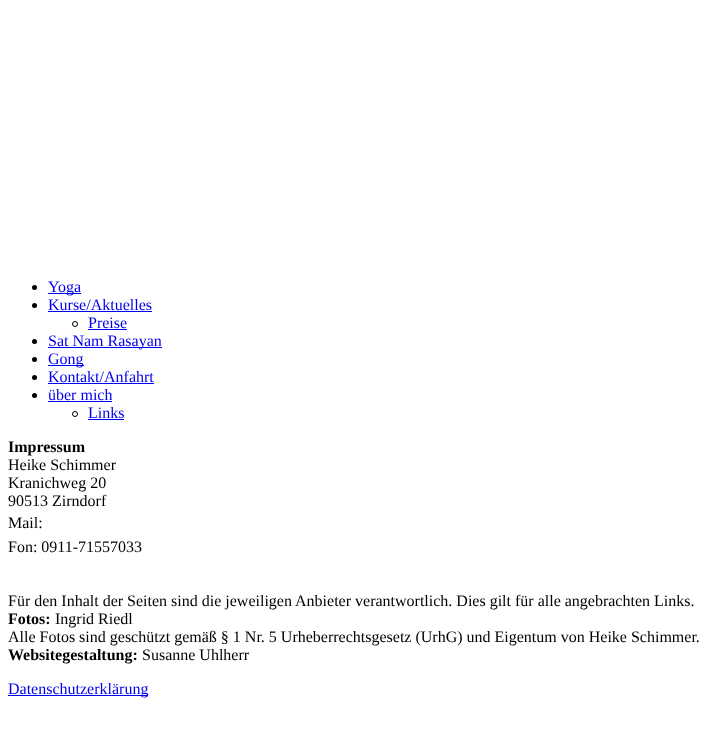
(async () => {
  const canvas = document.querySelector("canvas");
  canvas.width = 724;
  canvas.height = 748;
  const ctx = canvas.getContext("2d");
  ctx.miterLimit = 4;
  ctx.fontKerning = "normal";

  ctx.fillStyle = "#ffffff";
  ctx.fillRect(0, 0, 724, 748);
  ctx.fillStyle = "#000000";
  ctx.beginPath();
  ctx.arc(34.5, 287.5, 2.5, 0, Math.PI * 2);
  ctx.fill();
  ctx.fillStyle = "#0000ee";
  ctx.fillRect(48, 293, 33, 1);
  ctx.fillStyle = "#000000";
  ctx.beginPath();
  ctx.arc(34.5, 305.5, 2.5, 0, Math.PI * 2);
  ctx.fill();
  ctx.fillStyle = "#0000ee";
  ctx.fillRect(48, 311, 104, 1);
  ctx.beginPath();
  ctx.arc(75, 324, 2.5, 0, Math.PI * 2);
  ctx.strokeStyle = "#000000";
  ctx.stroke();
  ctx.fillRect(88, 329, 39, 1);
  ctx.fillStyle = "#000000";
  ctx.beginPath();
  ctx.arc(34.5, 341.5, 2.5, 0, Math.PI * 2);
  ctx.fill();
  ctx.fillStyle = "#0000ee";
  ctx.fillRect(48, 347, 114, 1);
  ctx.fillStyle = "#000000";
  ctx.beginPath();
  ctx.arc(34.5, 359.5, 2.5, 0, Math.PI * 2);
  ctx.fill();
  ctx.fillStyle = "#0000ee";
  ctx.fillRect(48, 365, 36, 1);
  ctx.fillStyle = "#000000";
  ctx.beginPath();
  ctx.arc(34.5, 377.5, 2.5, 0, Math.PI * 2);
  ctx.fill();
  ctx.fillStyle = "#0000ee";
  ctx.fillRect(48, 383, 106, 1);
  ctx.fillStyle = "#000000";
  ctx.beginPath();
  ctx.arc(34.5, 395.5, 2.5, 0, Math.PI * 2);
  ctx.fill();
  ctx.fillStyle = "#0000ee";
  ctx.fillRect(48, 401, 64, 1);
  ctx.beginPath();
  ctx.arc(75, 414, 2.5, 0, Math.PI * 2);
  ctx.stroke();
  ctx.fillRect(88, 419, 36, 1);
  ctx.fillRect(8, 695, 140, 1);
  ctx.font = "16px Liberation Serif";
  for (const [text, x, y] of [
    ["Yoga", 48, 292],
    ["Kurse/Aktuelles", 48, 310],
    ["Preise", 88, 328],
    ["Sat Nam Rasayan", 48, 346],
    ["Gong", 48, 364],
    ["Kontakt/Anfahrt", 48, 382],
    ["über mich", 48, 400],
    ["Links", 88, 418],
  ]) {
    ctx.fillText(text, x, y);
  }
  ctx.font = "bold 16px Liberation Serif";
  ctx.fillStyle = "#000000";
  ctx.fillText("Impressum", 8, 452);
  ctx.font = "16px Liberation Serif";
  for (const [text, x, y] of [
    ["Heike Schimmer", 8, 470],
    ["Kranichweg 20", 8, 488],
    ["90513 Zirndorf", 8, 506],
    ["Mail:", 8, 528],
    ["Fon: 0911-71557033", 8, 552],
    ["Für den Inhalt der Seiten sind die jeweiligen Anbieter verantwortlich. Dies gilt für alle angebrachten Links.", 8, 606],
  ]) {
    ctx.fillText(text, x, y);
  }
  ctx.font = "bold 16px Liberation Serif";
  ctx.fillText("Fotos:", 8, 624);
  ctx.font = "16px Liberation Serif";
  ctx.fillText("Ingrid Riedl", 55, 624);
  ctx.fillText("Alle Fotos sind geschützt gemäß § 1 Nr. 5 Urheberrechtsgesetz (UrhG) und Eigentum von Heike Schimmer.", 8, 642);
  ctx.font = "bold 16px Liberation Serif";
  ctx.fillText("Websitegestaltung:", 8, 660);
  ctx.font = "16px Liberation Serif";
  ctx.fillText("Susanne Uhlherr", 142, 660);
  ctx.fillStyle = "#0000ee";
  ctx.fillText("Datenschutzerklärung", 8, 694);
})();
